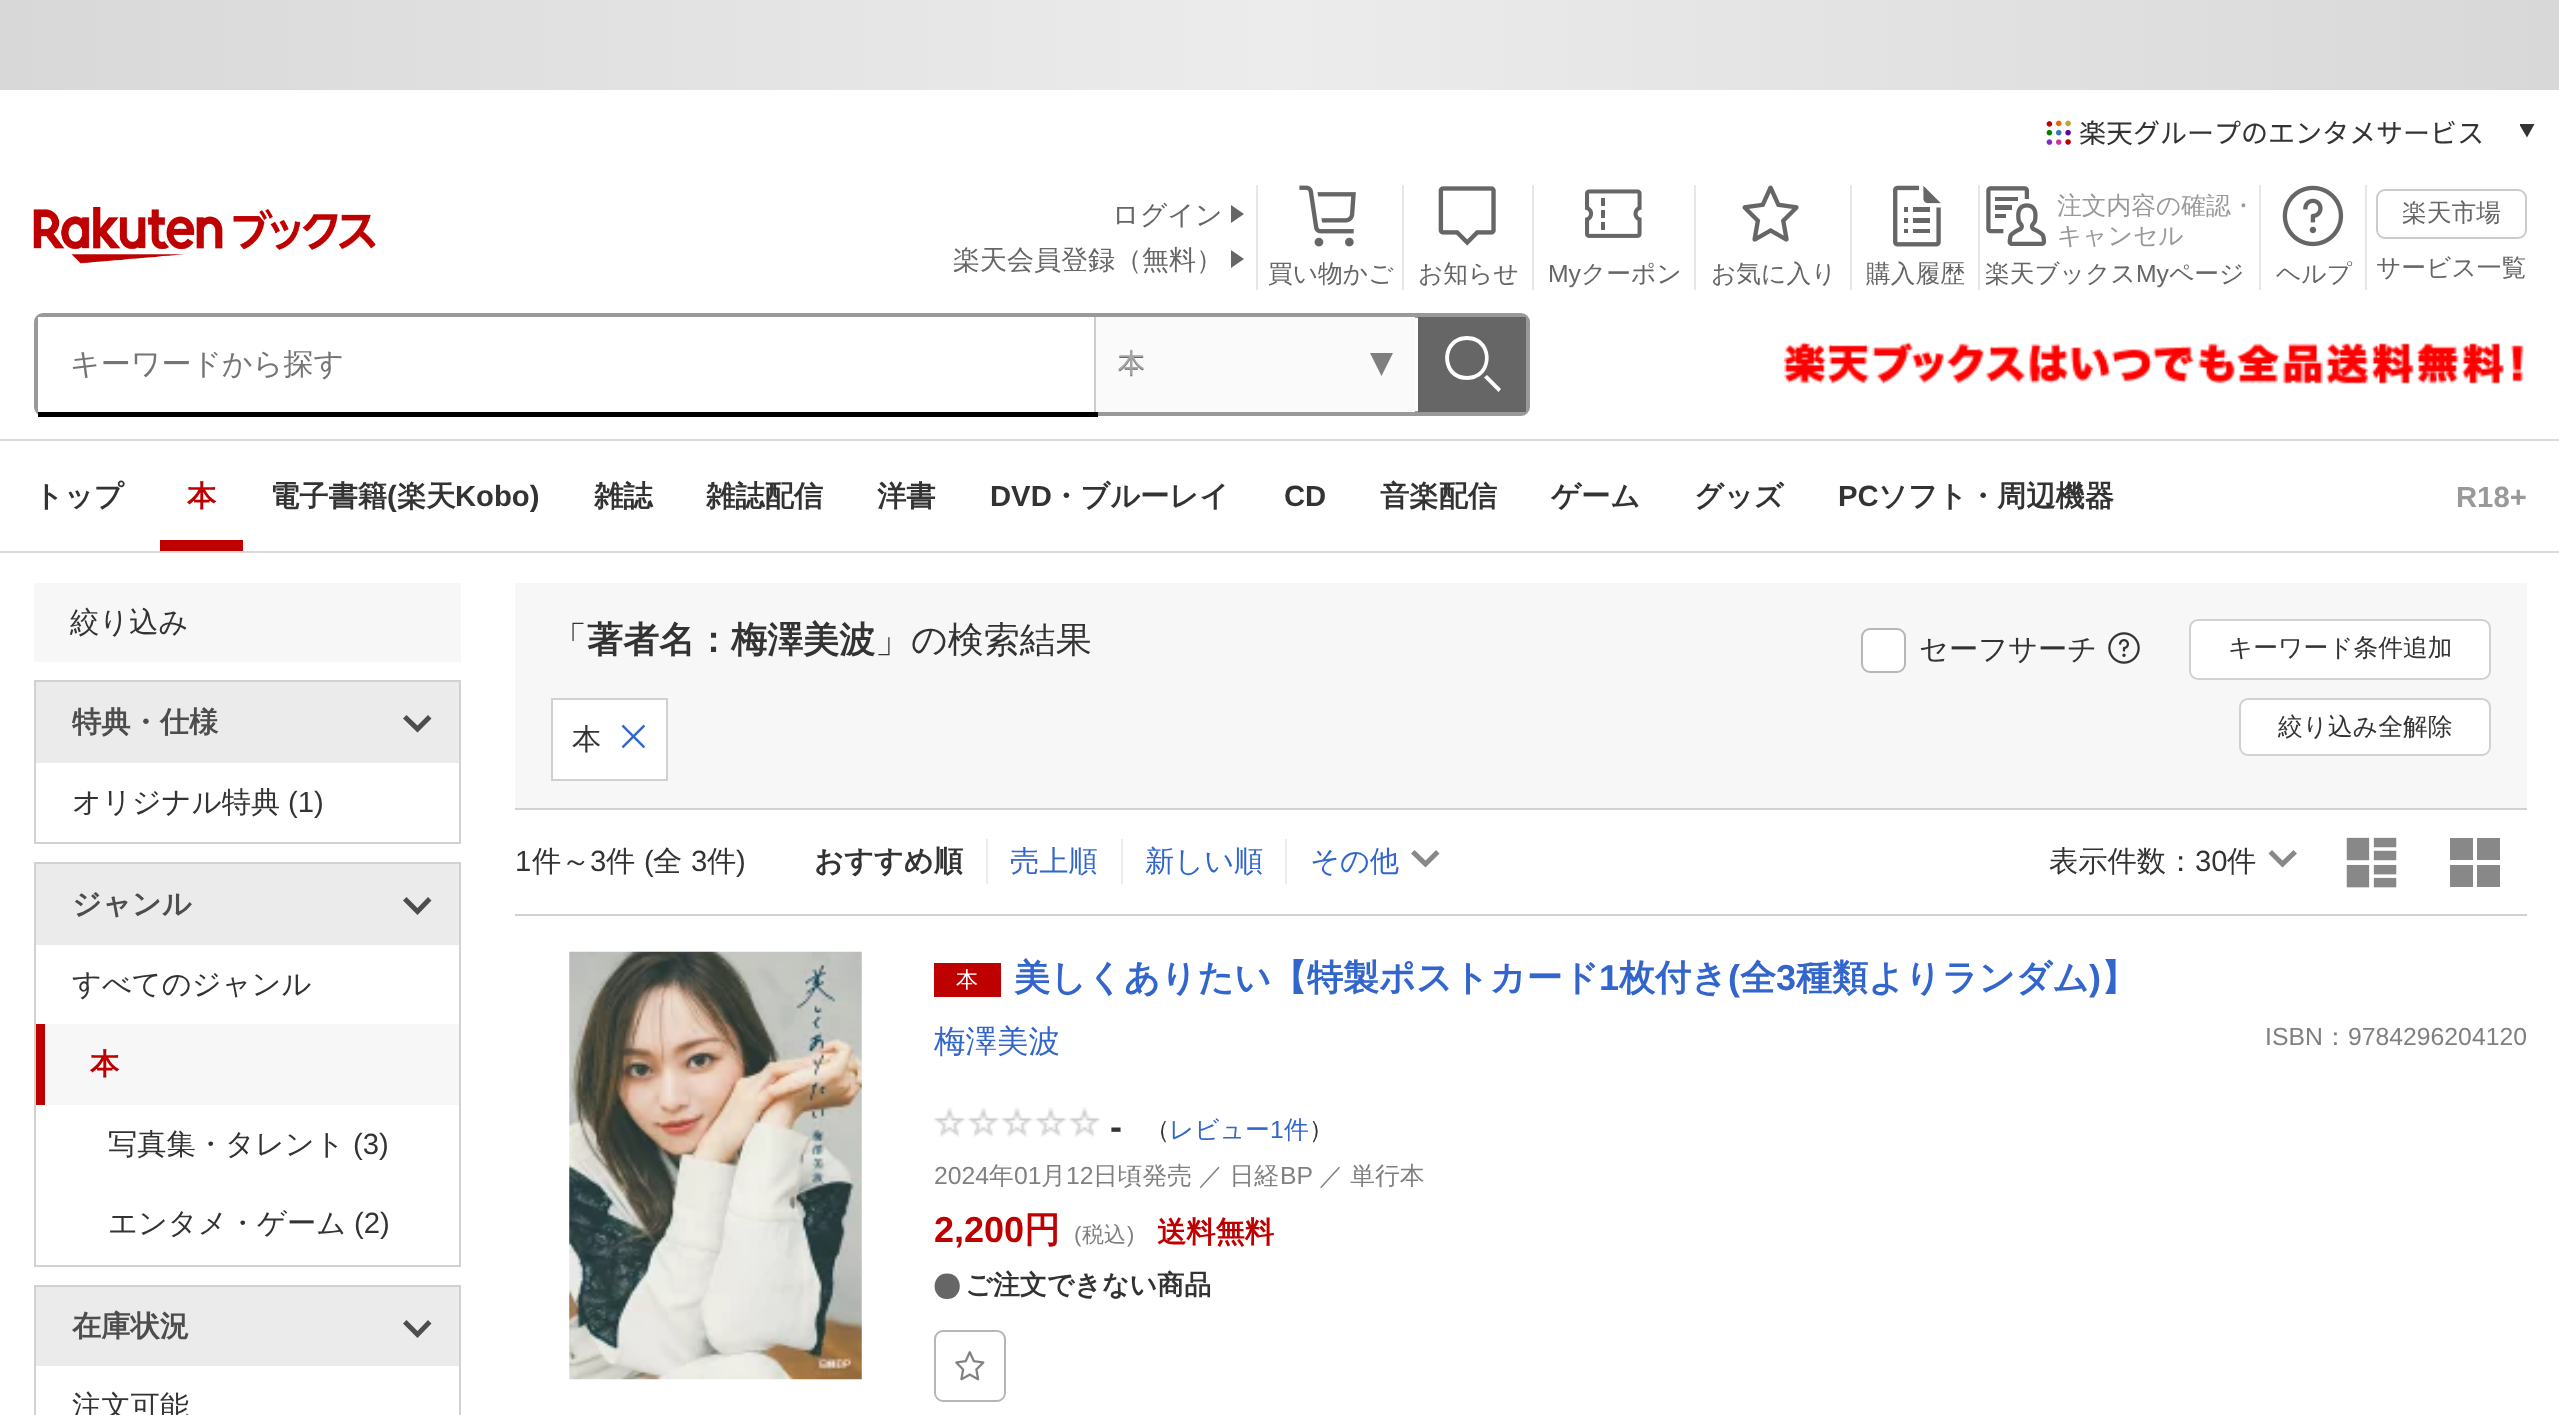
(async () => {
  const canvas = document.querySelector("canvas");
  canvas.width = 2559;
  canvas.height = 1415;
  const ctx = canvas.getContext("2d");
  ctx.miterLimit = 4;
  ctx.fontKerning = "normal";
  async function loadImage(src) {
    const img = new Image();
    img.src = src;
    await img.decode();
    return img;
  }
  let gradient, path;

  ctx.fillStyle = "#ffffff";
  ctx.fillRect(0, 0, 2559, 1415);
  gradient = ctx.createLinearGradient(0, 45, 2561, 45);
  gradient.addColorStop(0, "#d8d8d8");
  gradient.addColorStop(0.5, "#ececec");
  gradient.addColorStop(1, "#d8d8d8");
  ctx.fillStyle = gradient;
  ctx.fillRect(0, 0, 2559, 90);
  ctx.drawImage(await loadImage("img/1.png"), 2046, 120, 25, 25);
  ctx.fillStyle = "#333333";
  path = new Path2D("M2520 124H2534.5L2527 137.5L2520 125.5Z");
  ctx.fill(path);
  ctx.fillStyle = "#d9d9d9";
  ctx.fillRect(0, 551, 2559, 2);
  ctx.drawImage(await loadImage("img/2.png"), 33, 207, 343, 57);
  ctx.fillStyle = "#666666";
  path = new Path2D("M1231 223V205L1244 214Z");
  ctx.fill(path);
  path = new Path2D("M1231 268V250L1244 259Z");
  ctx.fill(path);
  ctx.fillStyle = "#e6e6e6";
  ctx.fillRect(1256, 185, 2, 105);
  ctx.drawImage(await loadImage("img/3.png"), 1299, 185, 57, 62);
  ctx.fillRect(1402, 185, 2, 105);
  ctx.drawImage(await loadImage("img/4.png"), 1438, 186, 58, 60);
  ctx.fillRect(1532, 185, 2, 105);
  ctx.drawImage(await loadImage("img/5.png"), 1585, 189, 57, 49);
  ctx.fillRect(1694, 185, 2, 105);
  ctx.drawImage(await loadImage("img/6.png"), 1742, 185, 57, 57);
  ctx.fillRect(1850, 185, 2, 105);
  ctx.drawImage(await loadImage("img/7.png"), 1893, 185, 48, 62);
  ctx.fillRect(1978, 185, 2, 105);
  ctx.drawImage(await loadImage("img/8.png"), 1986, 186, 61, 60);
  ctx.fillRect(2259, 185, 2, 105);
  ctx.drawImage(await loadImage("img/9.png"), 2282, 185, 62, 62);
  ctx.fillRect(2365, 185, 2, 105);
  ctx.beginPath();
  ctx.roundRect(2377, 190, 149, 48, 8);
  ctx.strokeStyle = "#cccccc";
  ctx.lineWidth = 2;
  ctx.stroke();
  ctx.beginPath();
  ctx.roundRect(36.5, 315.5, 1491, 98, 6.5);
  ctx.strokeStyle = "#999999";
  ctx.lineWidth = 5;
  ctx.stroke();
  for (const [x, y, w, h, color] of [
    [38, 317, 1056, 95, "#ffffff"],
    [38, 412, 1060, 5, "#000000"],
    [1418, 317, 108, 95, "#666666"],
  ]) {
    ctx.fillStyle = color;
    ctx.fillRect(x, y, w, h);
  }
  ctx.fillStyle = "#ffffff";
  path = new Path2D("M1467 336C1438 336 1438 380 1467 380C1496 380 1496 336 1467 336M1467 376C1443 376 1443 340 1467 340C1491 340 1491 376 1467 376");
  ctx.fill(path, "evenodd");
  path = new Path2D("M1487 375L1484 377.5L1498.5 392L1501 389Z");
  ctx.fill(path, "evenodd");
  ctx.fillStyle = "#fafafa";
  ctx.fillRect(1096, 317, 319, 95);
  ctx.fillStyle = "#cccccc";
  ctx.fillRect(1094, 317, 2, 95);
  ctx.fillStyle = "#7f7f7f";
  path = new Path2D("M1370 353H1393L1381.5 376Z");
  ctx.fill(path);
  ctx.drawImage(await loadImage("img/10.png"), 1784, 342, 740, 43);
  for (const [x, y, w, h, color] of [
    [0, 439, 2559, 2, "#d9d9d9"],
    [160, 540, 83, 11, "#bf0000"],
    [34, 583, 427, 79, "#f7f7f7"],
  ]) {
    ctx.fillStyle = color;
    ctx.fillRect(x, y, w, h);
  }
  ctx.strokeStyle = "#d1d1d1";
  ctx.lineWidth = 2;
  ctx.strokeRect(35, 681, 425, 162);
  ctx.fillStyle = "#ebebeb";
  ctx.fillRect(36, 682, 423, 81);
  ctx.fillStyle = "#4d4d4d";
  path = new Path2D("M417.5 732.5L403 718.5L406.5 715L417.5 725.5L428 715L431.5 718.5Z");
  ctx.fill(path);
  ctx.strokeRect(35, 863, 425, 403);
  ctx.fillStyle = "#ebebeb";
  ctx.fillRect(36, 864, 423, 81);
  ctx.fillStyle = "#4d4d4d";
  path = new Path2D("M417.5 915L403 900.5L406.5 897L417.5 908L428 897L431.5 900.5Z");
  ctx.fill(path);
  ctx.fillStyle = "#f7f7f7";
  ctx.fillRect(45, 1024, 414, 81);
  ctx.fillStyle = "#bf0000";
  ctx.fillRect(36, 1024, 9, 81);
  ctx.strokeRect(35, 1286, 425, 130);
  ctx.fillStyle = "#ebebeb";
  ctx.fillRect(36, 1287, 423, 79);
  ctx.fillStyle = "#4d4d4d";
  path = new Path2D("M417.5 1338L403 1323.5L406.5 1320L417.5 1331L428 1320L431.5 1323.5Z");
  ctx.fill(path);
  ctx.fillStyle = "#f7f7f7";
  ctx.fillRect(515, 583, 2012, 225);
  ctx.fillStyle = "#ffffff";
  ctx.beginPath();
  ctx.roundRect(1862, 629, 43, 43, 8);
  ctx.fill();
  ctx.strokeStyle = "#b6b6b6";
  ctx.stroke();
  ctx.drawImage(await loadImage("img/11.png"), 2108, 632, 32, 32);
  ctx.beginPath();
  ctx.roundRect(2190, 620, 300, 59, 8);
  ctx.fill();
  ctx.strokeStyle = "#d1d1d1";
  ctx.stroke();
  ctx.beginPath();
  ctx.rect(552, 699, 115, 81);
  ctx.fill();
  ctx.stroke();
  ctx.drawImage(await loadImage("img/12.png"), 621, 724, 25, 25);
  ctx.beginPath();
  ctx.roundRect(2240, 699, 250, 56, 8);
  ctx.fill();
  ctx.stroke();
  for (const [x, y, w, h, color] of [
    [515, 808, 2012, 2, "#d1d1d1"],
    [515, 914, 2012, 2, "#d1d1d1"],
    [986, 839, 2, 45, "#ececec"],
    [1121, 839, 2, 45, "#ececec"],
    [1285, 839, 2, 45, "#ececec"],
  ]) {
    ctx.fillStyle = color;
    ctx.fillRect(x, y, w, h);
  }
  ctx.fillStyle = "#888888";
  path = new Path2D("M1425.5 867.5L1411 853.5L1414.5 850L1425.5 860.5L1436 850L1439.5 853.5Z");
  ctx.fill(path);
  path = new Path2D("M2282.5 867.5L2268.5 853.5L2272 850L2282.5 860.5L2293.5 850L2297 853.5Z");
  ctx.fill(path);
  ctx.drawImage(await loadImage("img/13.png"), 2346, 837, 51, 51);
  path = new Path2D("M2450 860H2473V838H2450ZM2450 887H2473V865H2450ZM2477 838V860H2500V838ZM2477 887H2500V865H2477Z");
  ctx.fill(path);
  ctx.drawImage(await loadImage("img/14.png"), 569, 951, 293, 429);
  ctx.fillStyle = "#bf0000";
  ctx.fillRect(934, 963, 67, 34);
  ctx.drawImage(await loadImage("img/15.png"), 934, 1107, 166, 30);
  ctx.fillStyle = "#666666";
  path = new Path2D("M947 1273.5C930.5 1273.5 930.5 1299 947 1299C964 1299 964 1273.5 947 1273.5Z");
  ctx.fill(path);
  ctx.beginPath();
  ctx.roundRect(935, 1331, 70, 70, 8);
  ctx.strokeStyle = "#b6b6b6";
  ctx.stroke();
  ctx.drawImage(await loadImage("img/16.png"), 955, 1351, 30, 30);
  ctx.font = "27px Noto Sans JP";
  ctx.fillStyle = "#333333";
  ctx.fillText("楽天グループのエンタメサービス", 2079, 143);
  ctx.font = "500 27px WenQuanYi Zen Hei";
  ctx.fillStyle = "#666666";
  ctx.fillText("ログイン", 1112, 224);
  ctx.fillText("楽天会員登録（無料）", 953, 269);
  ctx.font = "500 24.75px WenQuanYi Zen Hei";
  ctx.fillText("買い物かご", 1268, 282);
  ctx.fillText("お知らせ", 1418, 282);
  ctx.font = "24.75px Liberation Sans";
  ctx.fillText("My", 1548, 282);
  ctx.font = "500 24.75px WenQuanYi Zen Hei";
  for (const [text, x, y] of [
    ["クーポン", 1581, 282],
    ["お気に入り", 1711, 282],
    ["購入履歴", 1866, 282],
  ]) {
    ctx.fillText(text, x, y);
  }
  ctx.fillStyle = "#999999";
  ctx.fillText("注文内容の確認・", 2057, 214);
  ctx.fillText("キャンセル", 2057, 244);
  ctx.fillStyle = "#666666";
  ctx.fillText("楽天ブックス", 1985, 282);
  ctx.font = "24.75px Liberation Sans";
  ctx.fillText("My", 2136, 282);
  ctx.font = "500 24.75px WenQuanYi Zen Hei";
  for (const [text, x, y] of [
    ["ページ", 2169, 282],
    ["ヘルプ", 2276, 282],
    ["楽天市場", 2402, 221],
    ["サービス一覧", 2376, 276],
  ]) {
    ctx.fillText(text, x, y);
  }
  ctx.font = "500 30px WenQuanYi Zen Hei";
  ctx.fillStyle = "#757575";
  ctx.fillText("キーワードから探す", 70, 374);
  ctx.font = "500 27px WenQuanYi Zen Hei";
  ctx.fillStyle = "#666666";
  ctx.fillText("本", 1118, 373);
  ctx.fillStyle = "#a7a7a7";
  ctx.fillText("本", 1118, 372);
  ctx.font = "bold 29.25px WenQuanYi Zen Hei";
  ctx.fillStyle = "#333333";
  ctx.fillText("トップ", 34, 506);
  ctx.fillStyle = "#bf0000";
  ctx.fillText("本", 187, 506);
  ctx.fillStyle = "#333333";
  ctx.fillText("電子書籍", 270, 506);
  ctx.font = "bold 29.25px Liberation Sans";
  ctx.fillText("(", 387, 506);
  ctx.font = "bold 29.25px WenQuanYi Zen Hei";
  ctx.fillText("楽天", 397, 506);
  ctx.font = "bold 29.25px Liberation Sans";
  ctx.fillText("Kobo)", 455, 506);
  ctx.font = "bold 29.25px WenQuanYi Zen Hei";
  for (const [text, x, y] of [
    ["雑誌", 594, 506],
    ["雑誌配信", 706, 506],
    ["洋書", 877, 506],
  ]) {
    ctx.fillText(text, x, y);
  }
  ctx.font = "bold 29.25px Liberation Sans";
  ctx.fillText("DVD", 990, 506);
  ctx.font = "bold 29.25px WenQuanYi Zen Hei";
  ctx.fillText("・ブルーレイ", 1051, 506);
  ctx.font = "bold 29.25px Liberation Sans";
  ctx.fillText("CD", 1284, 506);
  ctx.font = "bold 29.25px WenQuanYi Zen Hei";
  for (const [text, x, y] of [
    ["音楽配信", 1380, 506],
    ["ゲーム", 1551, 506],
    ["グッズ", 1694, 506],
  ]) {
    ctx.fillText(text, x, y);
  }
  ctx.font = "bold 29.25px Liberation Sans";
  ctx.fillText("PC", 1838, 506);
  ctx.font = "bold 29.25px WenQuanYi Zen Hei";
  ctx.fillText("ソフト・周辺機器", 1878, 506);
  ctx.font = "bold 29.25px Liberation Sans";
  ctx.fillStyle = "#999999";
  ctx.fillText("R18+", 2456, 507);
  ctx.font = "500 29.25px WenQuanYi Zen Hei";
  ctx.fillStyle = "#333333";
  ctx.fillText("絞り込み", 70, 632);
  ctx.font = "bold 29.25px WenQuanYi Zen Hei";
  ctx.fillStyle = "#4d4d4d";
  ctx.fillText("特典・仕様", 72, 732);
  ctx.font = "500 29.25px WenQuanYi Zen Hei";
  ctx.fillStyle = "#333333";
  ctx.fillText("オリジナル特典", 72, 812);
  ctx.font = "29.25px Liberation Sans";
  ctx.fillText("(1)", 288, 812);
  ctx.font = "bold 29.25px WenQuanYi Zen Hei";
  ctx.fillStyle = "#4d4d4d";
  ctx.fillText("ジャンル", 72, 914);
  ctx.font = "500 29.25px WenQuanYi Zen Hei";
  ctx.fillStyle = "#333333";
  ctx.fillText("すべてのジャンル", 72, 994);
  ctx.font = "bold 29.25px WenQuanYi Zen Hei";
  ctx.fillStyle = "#bf0000";
  ctx.fillText("本", 90, 1074);
  ctx.font = "500 29.25px WenQuanYi Zen Hei";
  ctx.fillStyle = "#333333";
  ctx.fillText("写真集・タレント", 108, 1154);
  ctx.font = "29.25px Liberation Sans";
  ctx.fillText("(3)", 353, 1154);
  ctx.font = "500 29.25px WenQuanYi Zen Hei";
  ctx.fillText("エンタメ・ゲーム", 108, 1233);
  ctx.font = "29.25px Liberation Sans";
  ctx.fillText("(2)", 354, 1233);
  ctx.font = "bold 29.25px WenQuanYi Zen Hei";
  ctx.fillStyle = "#4d4d4d";
  ctx.fillText("在庫状況", 72, 1336);
  ctx.font = "500 29.25px WenQuanYi Zen Hei";
  ctx.fillStyle = "#333333";
  ctx.fillText("注文可能", 72, 1416);
  ctx.font = "500 36px WenQuanYi Zen Hei";
  ctx.fillText("「", 551, 652);
  ctx.font = "bold 36px WenQuanYi Zen Hei";
  ctx.fillText("著者名：梅澤美波", 587, 652);
  ctx.font = "500 36px WenQuanYi Zen Hei";
  ctx.fillText("」の検索結果", 875, 652);
  ctx.font = "500 29.25px WenQuanYi Zen Hei";
  ctx.fillText("セーフサーチ", 1919, 659);
  ctx.font = "500 24.75px WenQuanYi Zen Hei";
  ctx.fillText("キーワード条件追加", 2228, 656);
  ctx.font = "500 29.25px WenQuanYi Zen Hei";
  ctx.fillText("本", 572, 749);
  ctx.font = "500 24.75px WenQuanYi Zen Hei";
  ctx.fillText("絞り込み全解除", 2278, 735);
  ctx.font = "29.25px Liberation Sans";
  ctx.fillText("1", 515, 871);
  ctx.font = "500 29.25px WenQuanYi Zen Hei";
  ctx.fillText("件～", 532, 871);
  ctx.font = "29.25px Liberation Sans";
  ctx.fillText("3", 590, 871);
  ctx.font = "500 29.25px WenQuanYi Zen Hei";
  ctx.fillText("件", 606, 871);
  ctx.font = "29.25px Liberation Sans";
  ctx.fillText("(", 644, 871);
  ctx.font = "500 29.25px WenQuanYi Zen Hei";
  ctx.fillText("全", 653, 871);
  ctx.font = "29.25px Liberation Sans";
  ctx.fillText("3", 691, 871);
  ctx.font = "500 29.25px WenQuanYi Zen Hei";
  ctx.fillText("件", 707, 871);
  ctx.font = "29.25px Liberation Sans";
  ctx.fillText(")", 736, 871);
  ctx.font = "bold 29.25px WenQuanYi Zen Hei";
  ctx.fillText("おすすめ順", 814, 871);
  ctx.font = "500 29.25px WenQuanYi Zen Hei";
  ctx.fillStyle = "#3366cc";
  for (const [text, x, y] of [
    ["売上順", 1010, 871],
    ["新しい順", 1145, 871],
    ["その他", 1310, 871],
  ]) {
    ctx.fillText(text, x, y);
  }
  ctx.fillStyle = "#333333";
  ctx.fillText("表示件数：", 2049, 871);
  ctx.font = "29.25px Liberation Sans";
  ctx.fillText("30", 2195, 871);
  ctx.font = "500 29.25px WenQuanYi Zen Hei";
  ctx.fillText("件", 2227, 871);
  ctx.font = "500 22px WenQuanYi Zen Hei";
  ctx.fillStyle = "#ffffff";
  ctx.fillText("本", 956, 987);
  ctx.font = "bold 36px WenQuanYi Zen Hei";
  ctx.fillStyle = "#3366cc";
  ctx.fillText("美しくありたい【特製ポストカード", 1014, 990);
  ctx.font = "bold 36px Liberation Sans";
  ctx.fillText("1", 1599, 990);
  ctx.font = "bold 36px WenQuanYi Zen Hei";
  ctx.fillText("枚付き", 1619, 990);
  ctx.font = "bold 36px Liberation Sans";
  ctx.fillText("(", 1728, 990);
  ctx.font = "bold 36px WenQuanYi Zen Hei";
  ctx.fillText("全", 1740, 990);
  ctx.font = "bold 36px Liberation Sans";
  ctx.fillText("3", 1776, 990);
  ctx.font = "bold 36px WenQuanYi Zen Hei";
  ctx.fillText("種類よりランダム", 1796, 990);
  ctx.font = "bold 36px Liberation Sans";
  ctx.fillText(")", 2089, 990);
  ctx.font = "bold 36px WenQuanYi Zen Hei";
  ctx.fillText("】", 2101, 990);
  ctx.font = "500 31.5px WenQuanYi Zen Hei";
  ctx.fillText("梅澤美波", 934, 1052);
  ctx.font = "24.75px Liberation Sans";
  ctx.fillStyle = "#808080";
  ctx.fillText("ISBN", 2265, 1045);
  ctx.font = "500 24.75px WenQuanYi Zen Hei";
  ctx.fillText("：", 2323, 1045);
  ctx.font = "24.75px Liberation Sans";
  ctx.fillText("9784296204120", 2348, 1045);
  ctx.font = "bold 36px Liberation Sans";
  ctx.fillStyle = "#333333";
  ctx.fillText("-", 1110, 1139);
  ctx.font = "500 24.75px WenQuanYi Zen Hei";
  ctx.fillText("（", 1145, 1138);
  ctx.fillStyle = "#3366cc";
  ctx.fillText("レビュー", 1169, 1138);
  ctx.font = "24.75px Liberation Sans";
  ctx.fillText("1", 1270, 1138);
  ctx.font = "500 24.75px WenQuanYi Zen Hei";
  ctx.fillText("件", 1284, 1138);
  ctx.fillStyle = "#333333";
  ctx.fillText("）", 1309, 1138);
  ctx.font = "24.75px Liberation Sans";
  ctx.fillStyle = "#808080";
  ctx.fillText("2024", 934, 1184);
  ctx.font = "500 24.75px WenQuanYi Zen Hei";
  ctx.fillText("年", 989, 1184);
  ctx.font = "24.75px Liberation Sans";
  ctx.fillText("01", 1014, 1184);
  ctx.font = "500 24.75px WenQuanYi Zen Hei";
  ctx.fillText("月", 1041, 1184);
  ctx.font = "24.75px Liberation Sans";
  ctx.fillText("12", 1066, 1184);
  ctx.wordSpacing = "-1px";
  ctx.font = "500 24.75px WenQuanYi Zen Hei";
  ctx.fillText("日頃発売 ／ 日経", 1093, 1184);
  ctx.wordSpacing = "0px";
  ctx.font = "24.75px Liberation Sans";
  ctx.fillText("BP", 1280, 1184);
  ctx.wordSpacing = "-1px";
  ctx.font = "500 24.75px WenQuanYi Zen Hei";
  ctx.fillText("／ 単行本", 1319, 1184);
  ctx.wordSpacing = "0px";
  ctx.font = "bold 36px Liberation Sans";
  ctx.fillStyle = "#bf0000";
  ctx.fillText("2,200", 934, 1242);
  ctx.font = "bold 36px WenQuanYi Zen Hei";
  ctx.fillText("円", 1024, 1242);
  ctx.font = "22px Liberation Sans";
  ctx.fillStyle = "#808080";
  ctx.fillText("(", 1074, 1242);
  ctx.font = "500 22px WenQuanYi Zen Hei";
  ctx.fillText("税込", 1082, 1242);
  ctx.font = "22px Liberation Sans";
  ctx.fillText(")", 1127, 1242);
  ctx.font = "bold 29.25px WenQuanYi Zen Hei";
  ctx.fillStyle = "#bf0000";
  ctx.fillText("送料無料", 1157, 1242);
  ctx.font = "bold 27px WenQuanYi Zen Hei";
  ctx.fillStyle = "#333333";
  ctx.fillText("ご注文できない商品", 965, 1294);
})();
